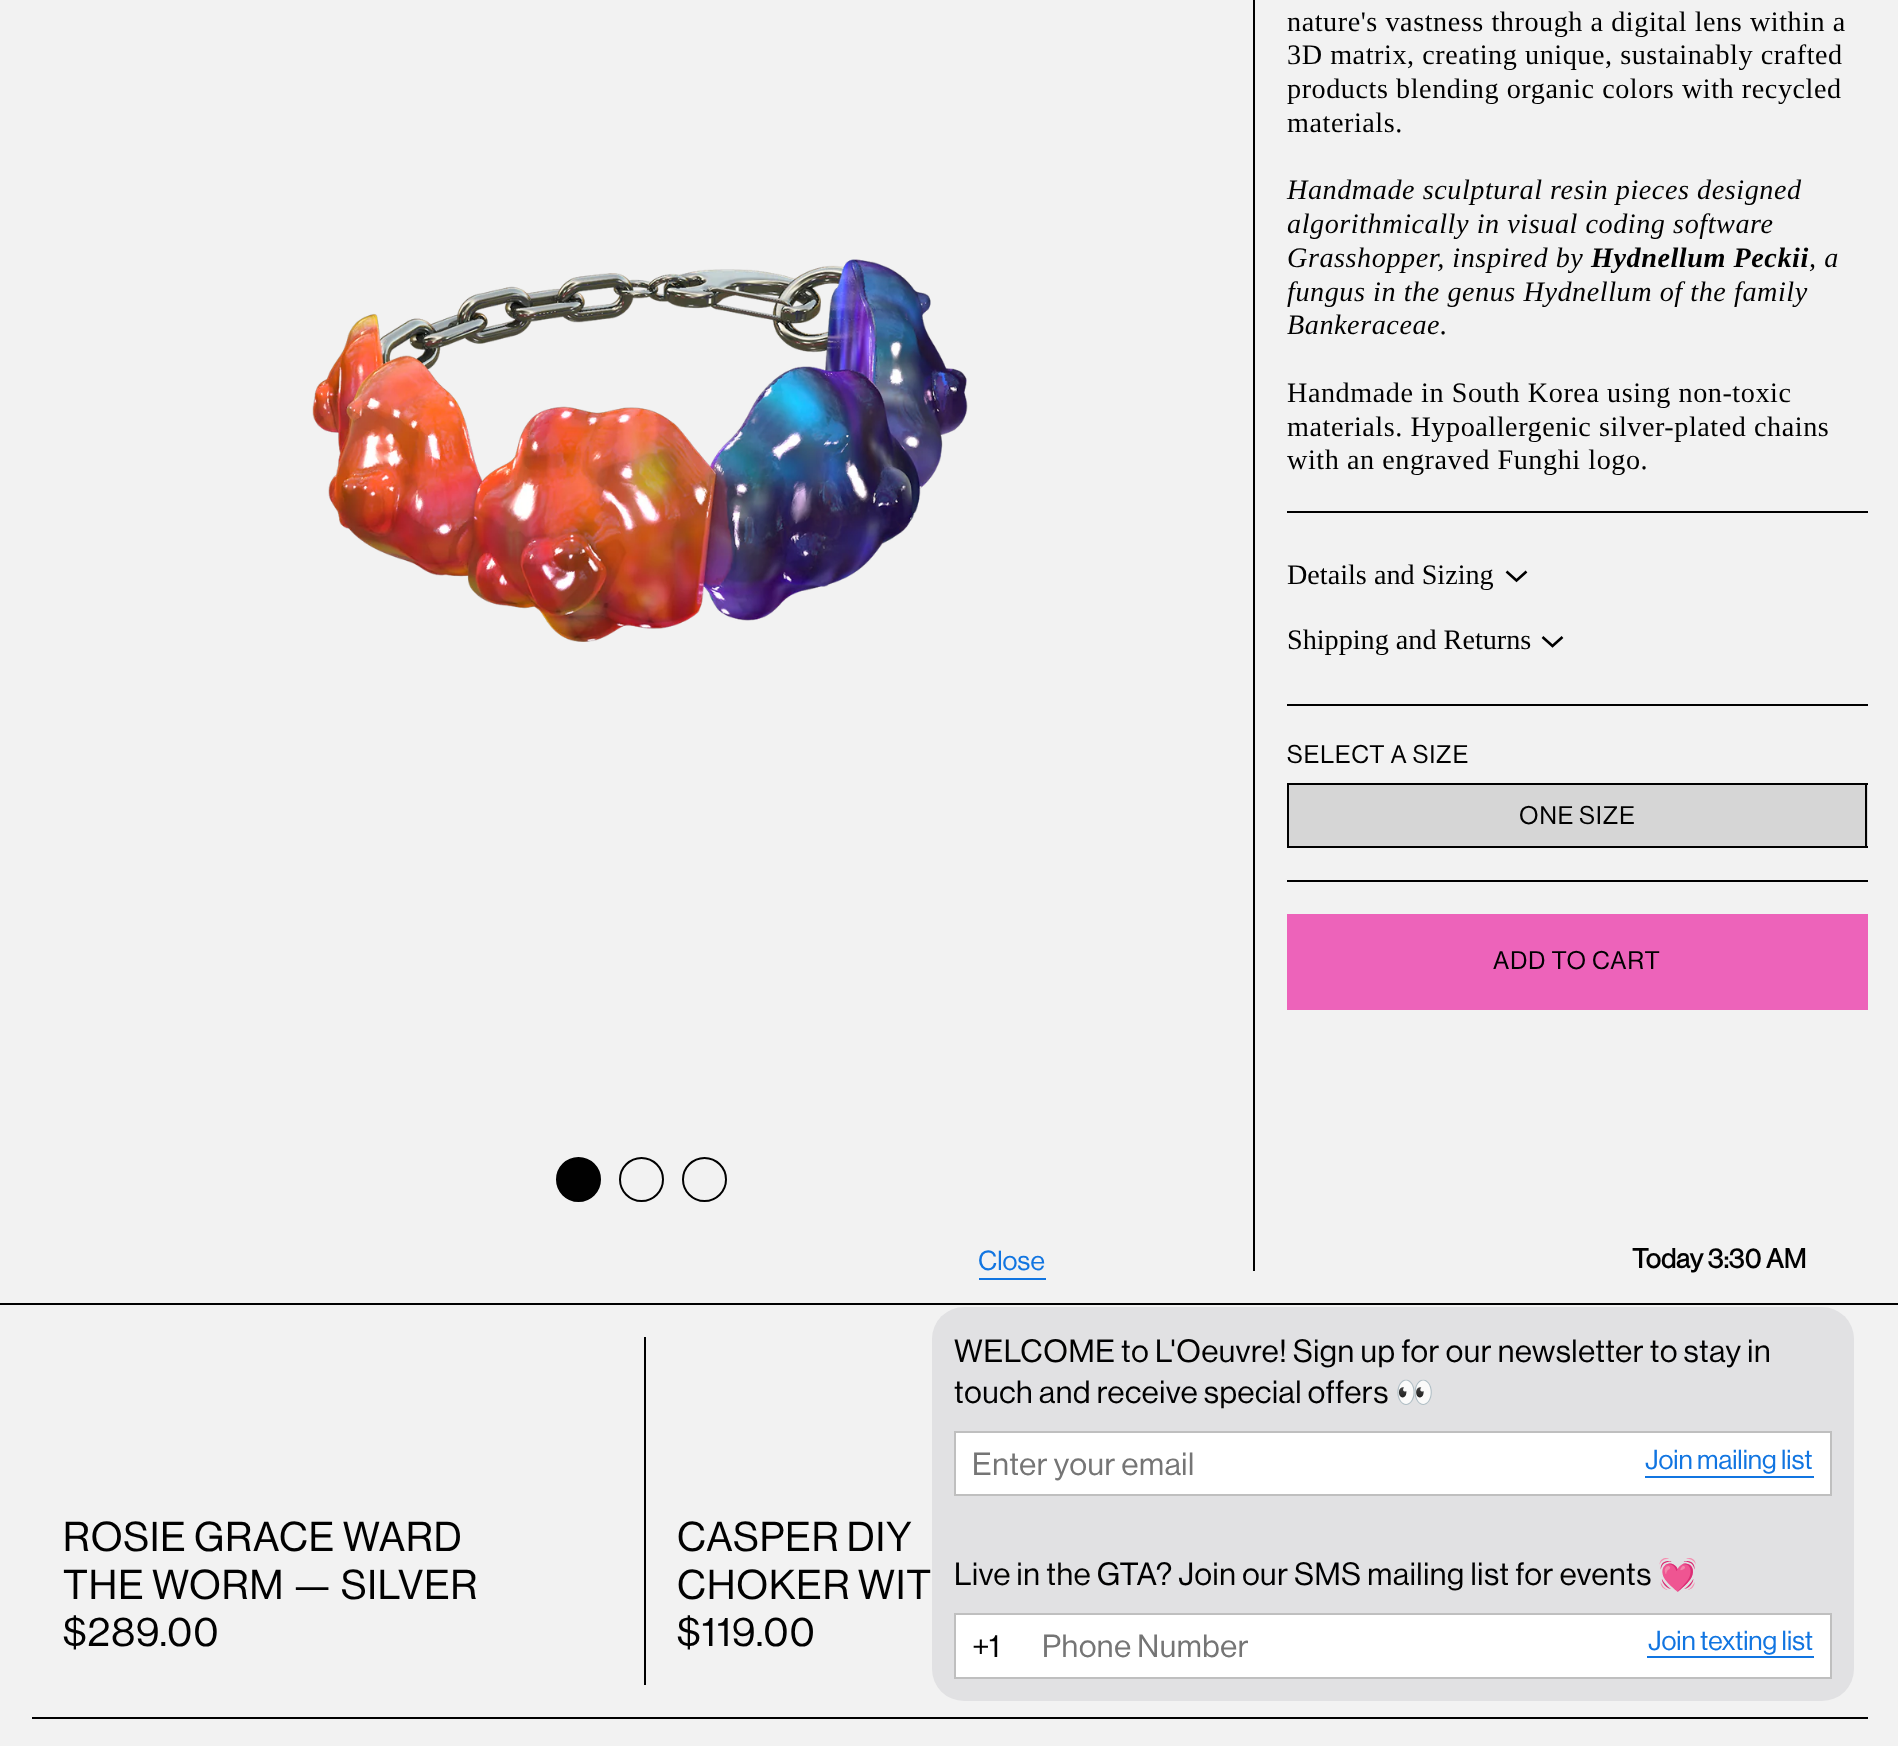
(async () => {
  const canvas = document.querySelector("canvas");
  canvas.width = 1898;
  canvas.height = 1746;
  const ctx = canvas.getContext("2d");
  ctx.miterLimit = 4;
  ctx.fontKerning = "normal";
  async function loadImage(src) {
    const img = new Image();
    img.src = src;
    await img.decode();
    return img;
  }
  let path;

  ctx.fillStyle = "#f2f2f2";
  ctx.fillRect(0, 0, 1898, 1746);
  ctx.fillStyle = "#010101";
  ctx.fillRect(1253, 0, 2, 1271);
  ctx.drawImage(await loadImage("img/1.png"), 312, 259, 656, 383);
  ctx.beginPath();
  ctx.arc(578.5, 1179.5, 21.5, 0, Math.PI * 2);
  ctx.fill();
  ctx.strokeStyle = "#010101";
  ctx.lineWidth = 2;
  ctx.stroke();
  ctx.beginPath();
  ctx.arc(641.5, 1179.5, 21.5, 0, Math.PI * 2);
  ctx.stroke();
  ctx.beginPath();
  ctx.arc(704.5, 1179.5, 21.5, 0, Math.PI * 2);
  ctx.stroke();
  ctx.fillRect(1287, 511, 581, 2);
  ctx.fillRect(1287, 704, 581, 2);
  path = new Path2D("M1506.5 571.5L1516.5 580.5L1526.5 571.5");
  ctx.strokeStyle = "#000000";
  ctx.lineWidth = 2.6;
  ctx.stroke(path);
  path = new Path2D("M1542.5 637L1552.5 646L1562.5 637");
  ctx.stroke(path);
  for (const [x, y, w, h, color] of [
    [1287, 880, 581, 2, "#010101"],
    [1287, 846, 581, 2, "#010101"],
    [1287, 783, 2, 65, "#010101"],
    [1289, 785, 579, 61, "#d6d6d6"],
    [1289, 783, 579, 2, "#000000"],
    [1865, 783, 2, 63, "#010101"],
    [1287, 914, 581, 96, "#ed63ba"],
    [0, 1303, 1898, 2, "#010101"],
    [644, 1337, 2, 348, "#010101"],
    [32, 1717, 1836, 2, "#010101"],
    [979, 1278, 67, 2, "#1175e1"],
  ]) {
    ctx.fillStyle = color;
    ctx.fillRect(x, y, w, h);
  }
  ctx.fillStyle = "#e1e1e3";
  ctx.beginPath();
  ctx.roundRect(932, 1307, 922, 394, 32);
  ctx.fill();
  ctx.fillStyle = "#ffffff";
  ctx.beginPath();
  ctx.rect(955, 1432, 876, 63);
  ctx.fill();
  ctx.strokeStyle = "#bfbfbf";
  ctx.lineWidth = 2;
  ctx.stroke();
  ctx.fillStyle = "#1175e1";
  ctx.fillRect(1645, 1476, 169, 2);
  ctx.fillStyle = "#ffffff";
  ctx.beginPath();
  ctx.rect(955, 1614, 876, 64);
  ctx.fill();
  ctx.stroke();
  ctx.fillStyle = "#1175e1";
  ctx.fillRect(1647, 1656, 167, 2);
  ctx.letterSpacing = "0.55px";
  ctx.font = "28.2px Liberation Serif";
  ctx.fillStyle = "#010101";
  for (const [text, x, y] of [
    ["nature's vastness through a digital lens within a", 1287, 31],
    ["3D matrix, creating unique, sustainably crafted", 1287, 64],
    ["products blending organic colors with recycled", 1287, 98],
    ["materials.", 1287, 132],
  ]) {
    ctx.fillText(text, x, y);
  }
  ctx.font = "italic 28.2px Liberation Serif";
  for (const [text, x, y] of [
    ["Handmade sculptural resin pieces designed", 1287, 199],
    ["algorithmically in visual coding software", 1287, 233],
    ["Grasshopper, inspired by", 1287, 267],
  ]) {
    ctx.fillText(text, x, y);
  }
  ctx.font = "italic bold 28.2px Liberation Serif";
  ctx.fillText("Hydnellum Peckii", 1591, 267);
  ctx.font = "italic 28.2px Liberation Serif";
  for (const [text, x, y] of [
    [", a", 1809, 267],
    ["fungus in the genus Hydnellum of the family", 1287, 301],
    ["Bankeraceae.", 1287, 334],
  ]) {
    ctx.fillText(text, x, y);
  }
  ctx.font = "28.2px Liberation Serif";
  for (const [text, x, y] of [
    ["Handmade in South Korea using non-toxic", 1287, 402],
    ["materials. Hypoallergenic silver-plated chains", 1287, 436],
    ["with an engraved Funghi logo.", 1287, 469],
  ]) {
    ctx.fillText(text, x, y);
  }
  ctx.letterSpacing = "0px";
  ctx.fillText("Details and Sizing", 1287, 584);
  ctx.fillText("Shipping and Returns", 1287, 649);
  ctx.letterSpacing = "1px";
  ctx.font = "25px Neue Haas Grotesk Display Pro";
  for (const [text, x, y] of [
    ["SELECT A SIZE", 1287, 763],
    ["ONE SIZE", 1519, 824],
    ["ADD TO CART", 1493, 969],
  ]) {
    ctx.fillText(text, x, y);
  }
  ctx.font = "40.75px Neue Haas Grotesk Display Pro";
  for (const [text, x, y] of [
    ["ROSIE GRACE WARD", 63, 1551],
    ["THE WORM — SILVER", 63, 1599],
    ["$289.00", 63, 1646],
    ["CASPER DIY", 677, 1551],
    ["CHOKER WIT", 677, 1599],
    ["$119.00", 677, 1646],
  ]) {
    ctx.fillText(text, x, y);
  }
  ctx.letterSpacing = "0px";
  ctx.font = "27px Neue Haas Grotesk Display Pro";
  ctx.fillStyle = "#1175e1";
  ctx.fillText("Close", 978, 1270);
  ctx.letterSpacing = "0.25px";
  ctx.font = "bold 27px Neue Haas Grotesk Display Pro";
  ctx.fillStyle = "#010101";
  ctx.fillText("Today 3:30 AM", 1632, 1268);
  ctx.letterSpacing = "0.63px";
  ctx.font = "31.5px Neue Haas Grotesk Display Pro";
  ctx.fillText("WELCOME to L'Oeuvre! Sign up for our newsletter to stay in", 954, 1362);
  ctx.fillText("touch and receive special offers", 954, 1403);
  ctx.font = "31.5px Noto Color Emoji";
  ctx.fillText("👀", 1395, 1403);
  ctx.font = "31.5px Neue Haas Grotesk Display Pro";
  ctx.fillStyle = "#757575";
  ctx.fillText("Enter your email", 972, 1475);
  ctx.letterSpacing = "0px";
  ctx.font = "27px Neue Haas Grotesk Display Pro";
  ctx.fillStyle = "#1175e1";
  ctx.fillText("Join mailing list", 1645, 1469);
  ctx.letterSpacing = "0.63px";
  ctx.font = "31.5px Neue Haas Grotesk Display Pro";
  ctx.fillStyle = "#010101";
  ctx.fillText("Live in the GTA? Join our SMS mailing list for events", 954, 1585);
  ctx.font = "31.5px Noto Color Emoji";
  ctx.fillText("💓", 1658, 1585);
  ctx.letterSpacing = "0px";
  ctx.font = "31.5px Neue Haas Grotesk Display Pro";
  ctx.fillText("+1", 972, 1657);
  ctx.letterSpacing = "0.63px";
  ctx.fillStyle = "#757575";
  ctx.fillText("Phone Number", 1042, 1657);
  ctx.letterSpacing = "0px";
  ctx.font = "27px Neue Haas Grotesk Display Pro";
  ctx.fillStyle = "#1175e1";
  ctx.fillText("Join texting list", 1648, 1650);
})();
